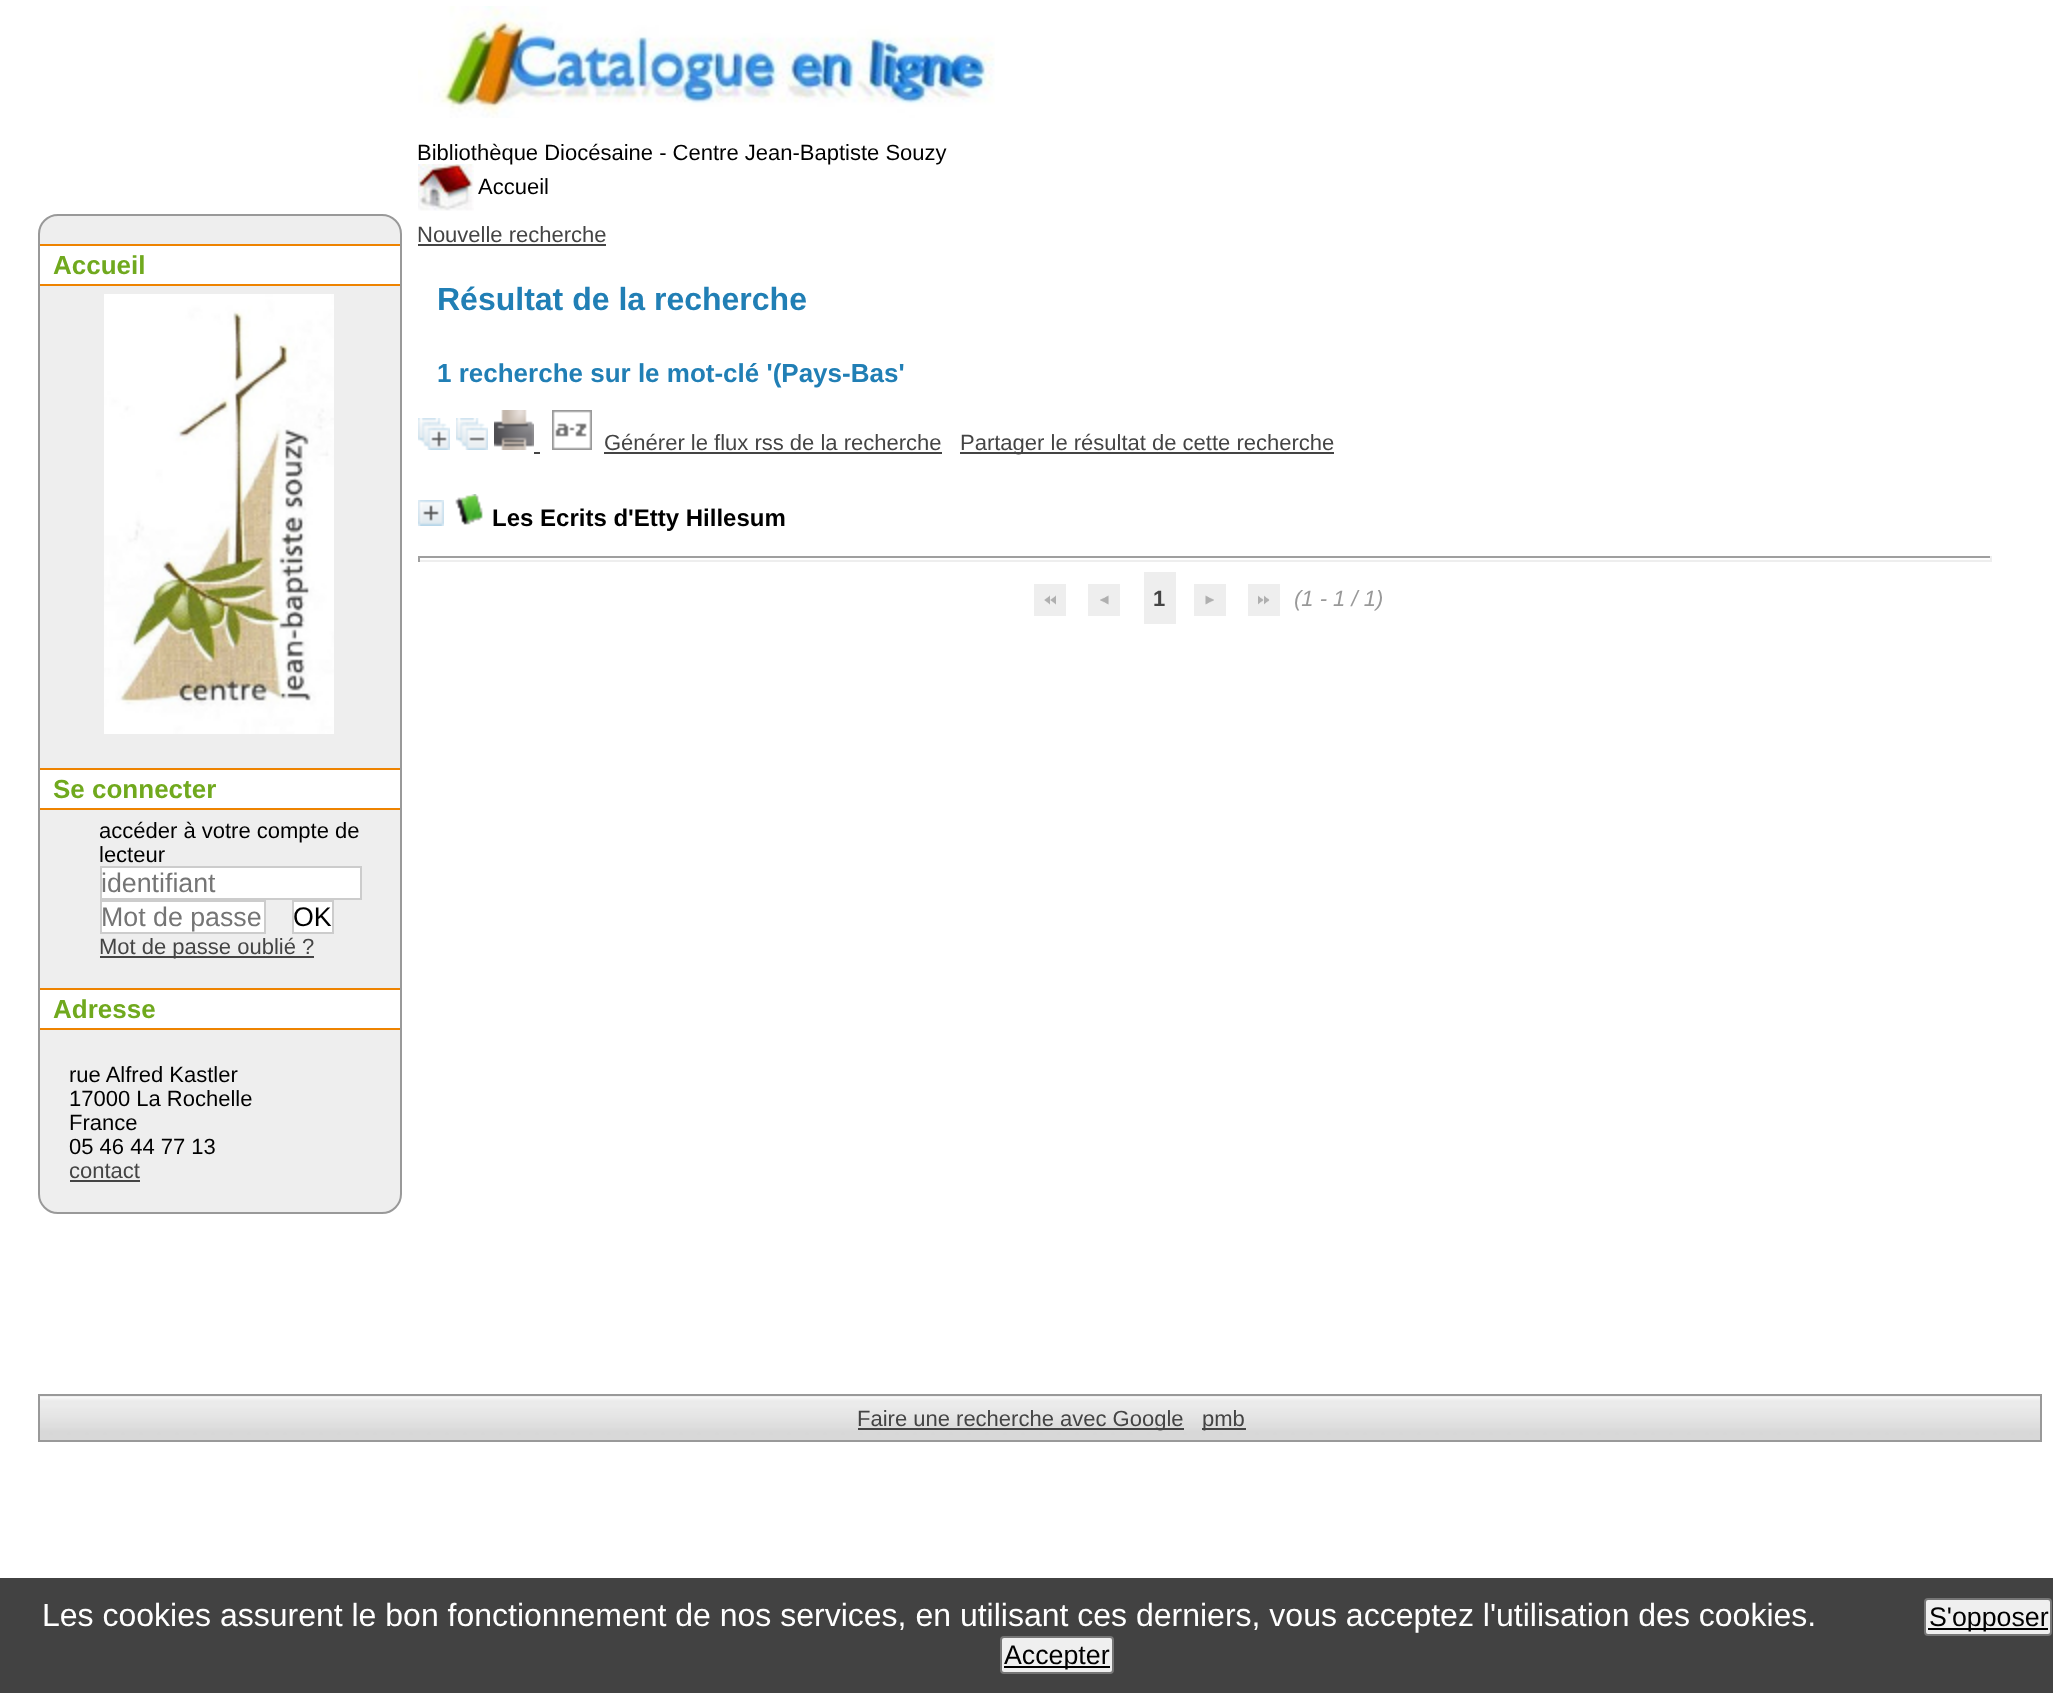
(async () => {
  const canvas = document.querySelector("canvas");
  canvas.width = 2053;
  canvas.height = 1693;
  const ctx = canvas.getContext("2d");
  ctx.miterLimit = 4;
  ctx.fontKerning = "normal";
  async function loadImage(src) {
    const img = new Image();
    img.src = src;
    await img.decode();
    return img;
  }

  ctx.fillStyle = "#ffffff";
  ctx.fillRect(0, 0, 2053, 1693);
  ctx.fillStyle = "#eeeeee";
  ctx.beginPath();
  ctx.roundRect(39, 215, 362, 998, 19);
  ctx.fill();
  ctx.strokeStyle = "#999999";
  ctx.lineWidth = 2;
  ctx.stroke();
  for (const [x, y, w, h, color] of [
    [40, 246, 360, 38, "#ffffff"],
    [40, 244, 360, 2, "#ee8300"],
    [40, 284, 360, 2, "#ee8300"],
  ]) {
    ctx.fillStyle = color;
    ctx.fillRect(x, y, w, h);
  }
  ctx.drawImage(await loadImage("img/1.png"), 104, 294, 230, 440);
  for (const [x, y, w, h, color] of [
    [40, 770, 360, 38, "#ffffff"],
    [40, 768, 360, 2, "#ee8300"],
    [40, 808, 360, 2, "#ee8300"],
  ]) {
    ctx.fillStyle = color;
    ctx.fillRect(x, y, w, h);
  }
  ctx.fillStyle = "#ffffff";
  ctx.beginPath();
  ctx.rect(101, 867, 260, 32);
  ctx.fill();
  ctx.strokeStyle = "#cccccc";
  ctx.stroke();
  ctx.beginPath();
  ctx.rect(101, 901, 164, 32);
  ctx.fill();
  ctx.stroke();
  ctx.beginPath();
  ctx.rect(293, 901, 40, 32);
  ctx.fill();
  ctx.stroke();
  for (const [x, y, w, h, color] of [
    [100, 956, 214, 2, "#444444"],
    [40, 990, 360, 38, "#ffffff"],
    [40, 988, 360, 2, "#ee8300"],
    [40, 1028, 360, 2, "#ee8300"],
    [70, 1180, 70, 2, "#444444"],
  ]) {
    ctx.fillStyle = color;
    ctx.fillRect(x, y, w, h);
  }
  ctx.drawImage(await loadImage("img/2.png"), 418, 6, 577, 112);
  ctx.fillRect(418, 244, 188, 2);
  ctx.drawImage(await loadImage("img/4.png"), 418, 418, 32, 32);
  ctx.drawImage(await loadImage("img/5.png"), 456, 418, 32, 32);
  ctx.drawImage(await loadImage("img/6.png"), 494, 410, 40, 40);
  ctx.fillRect(534, 452, 6, 2);
  ctx.drawImage(await loadImage("img/7.png"), 552, 410, 40, 40);
  ctx.fillRect(604, 452, 338, 2);
  ctx.fillRect(960, 452, 374, 2);
  ctx.drawImage(await loadImage("img/8.png"), 418, 500, 26, 26);
  ctx.drawImage(await loadImage("img/9.png"), 455, 494, 28, 31);
  for (const [x, y, w, h, color] of [
    [418, 556, 1574, 2, "#9f9f9f"],
    [1990, 556, 2, 6, "#eeeeee"],
    [418, 560, 1574, 2, "#eeeeee"],
    [418, 556, 2, 6, "#9f9f9f"],
    [1034, 584, 32, 32, "#eeeeee"],
  ]) {
    ctx.fillStyle = color;
    ctx.fillRect(x, y, w, h);
  }
  ctx.drawImage(await loadImage("img/10.png"), 1044, 595, 12, 10);
  ctx.fillRect(1088, 584, 32, 32);
  ctx.drawImage(await loadImage("img/11.png"), 1100, 595, 9, 10);
  ctx.fillRect(1144, 572, 32, 52);
  ctx.fillRect(1194, 584, 32, 32);
  ctx.drawImage(await loadImage("img/12.png"), 1205, 595, 9, 10);
  ctx.fillRect(1248, 584, 32, 32);
  ctx.drawImage(await loadImage("img/13.png"), 1258, 595, 12, 10);
  ctx.drawImage(await loadImage("img/14.png"), 40, 1396, 2000, 44);
  ctx.strokeStyle = "#999999";
  ctx.strokeRect(39, 1395, 2002, 46);
  for (const [x, y, w, h, color] of [
    [858, 1428, 326, 2, "#444444"],
    [1202, 1428, 44, 2, "#444444"],
    [0, 1578, 2053, 115, "#424242"],
  ]) {
    ctx.fillStyle = color;
    ctx.fillRect(x, y, w, h);
  }
  ctx.fillStyle = "#efefef";
  ctx.beginPath();
  ctx.roundRect(1925, 1599, 126, 36, 3);
  ctx.fill();
  ctx.strokeStyle = "#767676";
  ctx.stroke();
  ctx.fillStyle = "#000000";
  ctx.fillRect(1928, 1628, 120, 2);
  ctx.fillStyle = "#efefef";
  ctx.beginPath();
  ctx.roundRect(1001, 1637, 112, 36, 3);
  ctx.fill();
  ctx.stroke();
  ctx.fillStyle = "#000000";
  ctx.fillRect(1004, 1666, 106, 2);
  ctx.font = "bold 26px Liberation Sans";
  ctx.fillStyle = "#70a91e";
  ctx.fillText("Accueil", 53, 274);
  ctx.fillText("Se connecter", 53, 798);
  ctx.font = "22px Liberation Sans";
  ctx.fillStyle = "#000000";
  ctx.fillText("accéder à votre compte de", 99, 838);
  ctx.fillText("lecteur", 99, 862);
  ctx.font = "26.75px Liberation Sans";
  ctx.fillStyle = "#757575";
  ctx.fillText("identifiant", 101, 892);
  ctx.fillText("Mot de passe", 101, 926);
  ctx.fillStyle = "#000000";
  ctx.fillText("OK", 293, 926);
  ctx.font = "22px Liberation Sans";
  ctx.fillStyle = "#444444";
  ctx.fillText("Mot de passe oublié ?", 99, 954);
  ctx.font = "bold 26px Liberation Sans";
  ctx.fillStyle = "#70a91e";
  ctx.fillText("Adresse", 53, 1018);
  ctx.font = "22px Liberation Sans";
  ctx.fillStyle = "#000000";
  for (const [text, x, y] of [
    ["rue Alfred Kastler", 69, 1082],
    ["17000 La Rochelle", 69, 1106],
    ["France", 69, 1130],
    ["05 46 44 77 13", 69, 1154],
  ]) {
    ctx.fillText(text, x, y);
  }
  ctx.fillStyle = "#444444";
  ctx.fillText("contact", 69, 1178);
  ctx.fillStyle = "#000000";
  ctx.fillText("Bibliothèque Diocésaine - Centre Jean-Baptiste Souzy", 417, 160);
  ctx.drawImage(await loadImage("img/3.png"), 418, 164, 56, 47);
  ctx.fillText("Accueil", 478, 194);
  ctx.fillStyle = "#444444";
  ctx.fillText("Nouvelle recherche", 417, 242);
  ctx.font = "bold 32px Liberation Sans";
  ctx.fillStyle = "#217fb5";
  ctx.fillText("Résultat de la recherche", 437, 310);
  ctx.font = "bold 26px Liberation Sans";
  ctx.fillText("1 recherche sur le mot-clé '(Pays-Bas'", 437, 382);
  ctx.font = "22px Liberation Sans";
  ctx.fillStyle = "#444444";
  ctx.fillText("Générer le flux rss de la recherche", 604, 450);
  ctx.fillText("Partager le résultat de cette recherche", 960, 450);
  ctx.font = "bold 24px Liberation Sans";
  ctx.fillStyle = "#000000";
  ctx.fillText("Les Ecrits d'Etty Hillesum", 492, 526);
  ctx.font = "bold 22px Liberation Sans";
  ctx.fillStyle = "#444444";
  ctx.fillText("1", 1153, 606);
  ctx.font = "italic 22px Liberation Sans";
  ctx.fillStyle = "#999999";
  ctx.fillText("(1 - 1 / 1)", 1294, 606);
  ctx.font = "22px Liberation Sans";
  ctx.fillStyle = "#444444";
  ctx.fillText("Faire une recherche avec Google", 857, 1426);
  ctx.fillText("pmb", 1202, 1426);
  ctx.font = "32px Liberation Sans";
  ctx.fillStyle = "#ffffff";
  ctx.fillText("Les cookies assurent le bon fonctionnement de nos services, en utilisant ces derniers, vous acceptez l'utilisation des cookies.", 42, 1626);
  ctx.font = "26.75px Liberation Sans";
  ctx.fillStyle = "#000000";
  ctx.fillText("S'opposer", 1929, 1626);
  ctx.fillText("Accepter", 1004, 1664);
})();
